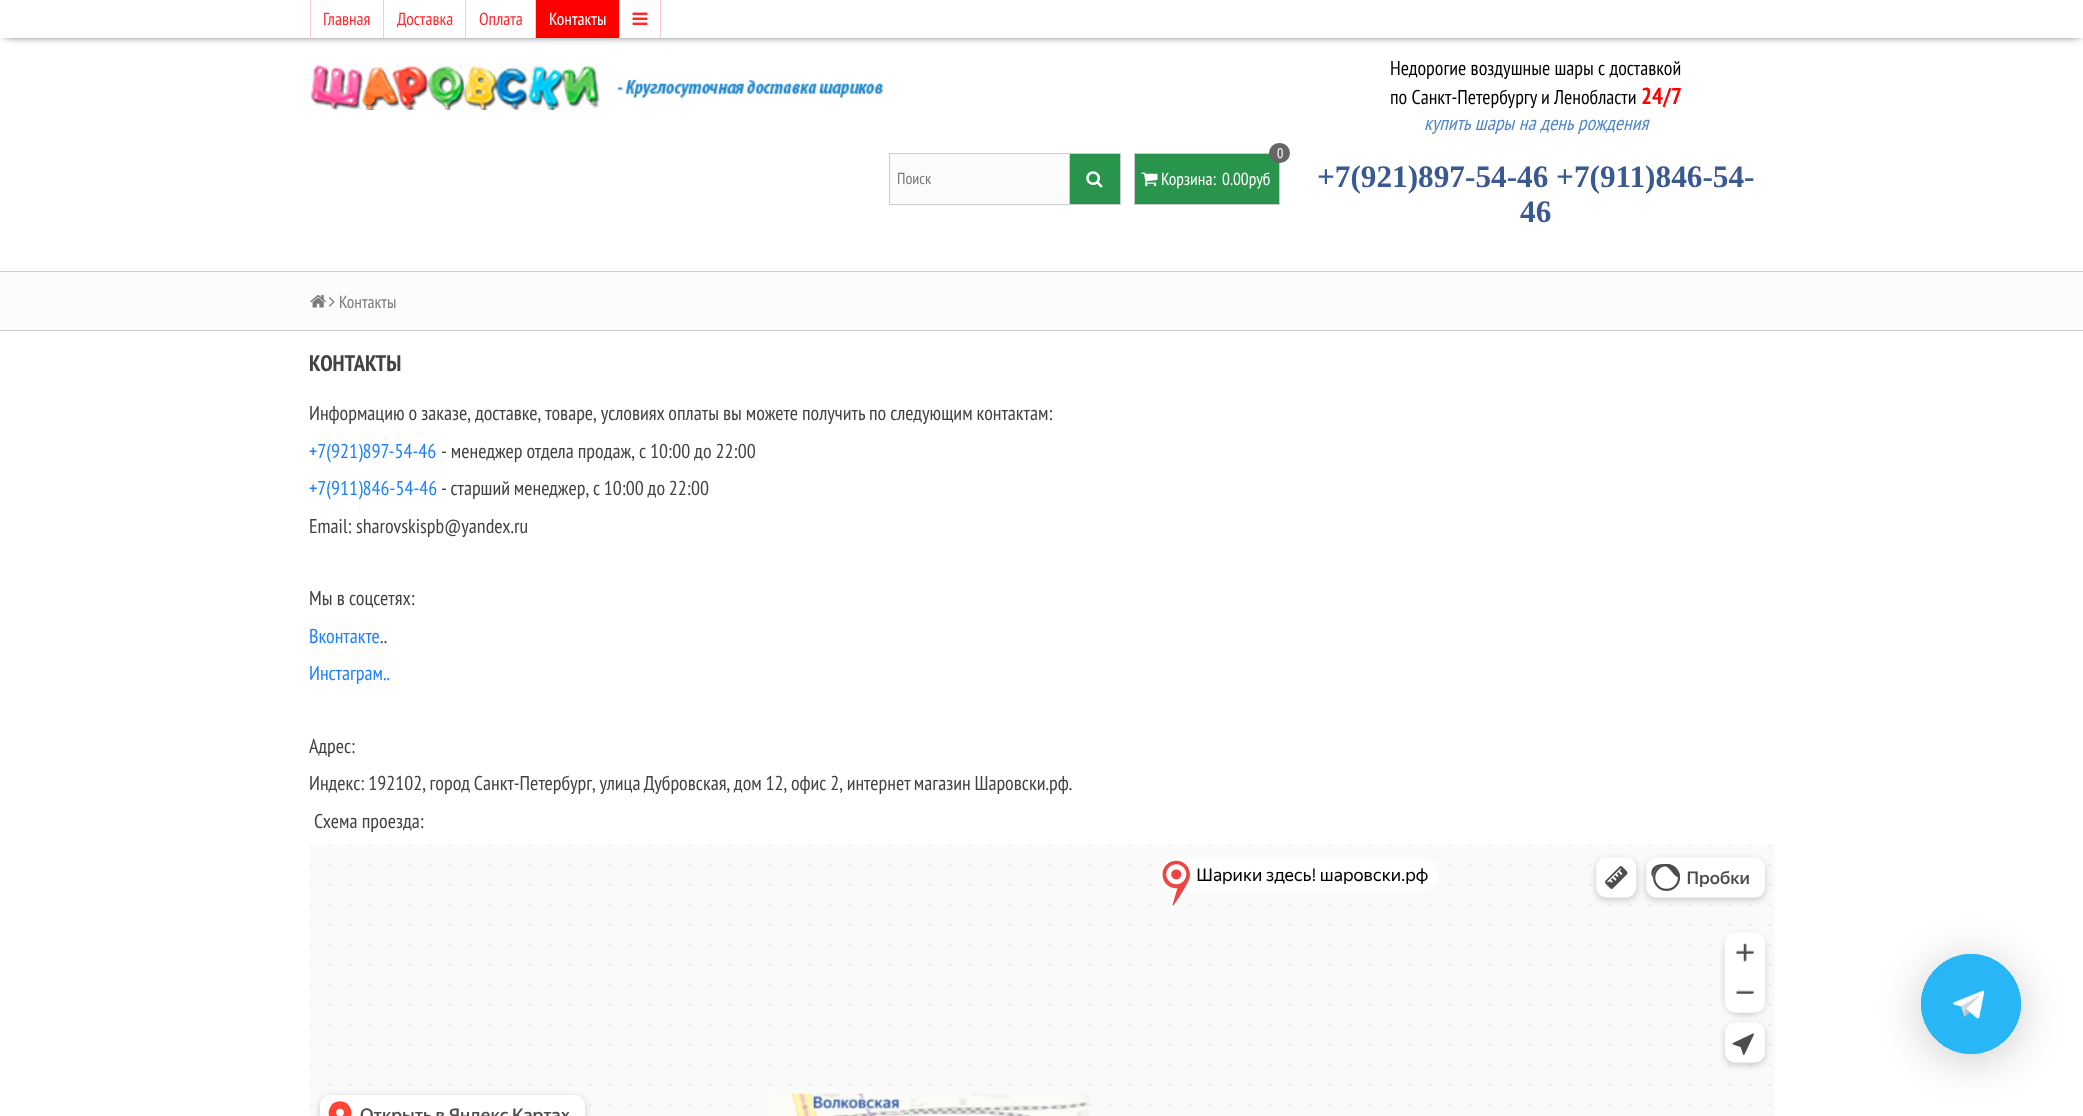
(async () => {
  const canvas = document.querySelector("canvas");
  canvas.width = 2083;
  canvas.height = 1116;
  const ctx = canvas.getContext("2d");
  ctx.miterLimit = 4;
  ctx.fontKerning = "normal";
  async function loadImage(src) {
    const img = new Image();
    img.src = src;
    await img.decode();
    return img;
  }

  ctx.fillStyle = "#ffffff";
  ctx.fillRect(0, 0, 2083, 1116);
  ctx.fillStyle = "#000000";
  ctx.filter = "blur(5px)";
  ctx.beginPath();
  ctx.rect(5, 8, 2074, 27);
  ctx.fill();
  ctx.filter = "none";
  for (const [x, y, w, h, color] of [
    [0, 0, 2083, 38, "#ffffff"],
    [383, 0, 1, 38, "#fccccc"],
    [310, 0, 1, 38, "#fccccc"],
    [465, 0, 1, 38, "#fccccc"],
    [535, 0, 1, 38, "#fccccc"],
    [536, 0, 83, 38, "#ff0000"],
    [619, 0, 1, 38, "#fccccc"],
    [660, 0, 1, 38, "#fccccc"],
  ]) {
    ctx.fillStyle = color;
    ctx.fillRect(x, y, w, h);
  }
  ctx.drawImage(await loadImage("img/1.png"), 632, 12, 16, 13);
  ctx.drawImage(await loadImage("img/2.png"), 310, 63, 573, 47);
  for (const [x, y, w, h, color] of [
    [890, 154, 179, 50, "#fbfbfb"],
    [889, 153, 180, 1, "#cccccc"],
    [889, 204, 180, 1, "#cccccc"],
    [889, 153, 1, 52, "#cccccc"],
  ]) {
    ctx.fillStyle = color;
    ctx.fillRect(x, y, w, h);
  }
  ctx.fillStyle = "#28944c";
  ctx.beginPath();
  ctx.rect(1069.5, 153.5, 51, 51);
  ctx.fill();
  ctx.strokeStyle = "#cccccc";
  ctx.stroke();
  ctx.drawImage(await loadImage("img/3.png"), 1086, 171, 17, 17);
  ctx.beginPath();
  ctx.rect(1134.5, 153.5, 145, 51);
  ctx.fill();
  ctx.stroke();
  ctx.drawImage(await loadImage("img/4.png"), 1141, 172, 17, 15);
  ctx.fillStyle = "#666666";
  ctx.beginPath();
  ctx.roundRect(1269, 143, 21, 20, 10);
  ctx.fill();
  for (const [x, y, w, h, color] of [
    [0, 272, 2083, 58, "#fcfcfc"],
    [0, 271, 2083, 1, "#cccccc"],
    [0, 330, 2083, 1, "#cccccc"],
  ]) {
    ctx.fillStyle = color;
    ctx.fillRect(x, y, w, h);
  }
  ctx.drawImage(await loadImage("img/5.png"), 310, 295, 16, 13);
  ctx.drawImage(await loadImage("img/6.png"), 328, 297, 7, 10);
  ctx.drawImage(await loadImage("img/7.png"), 310, 845, 1465, 271);
  ctx.fillStyle = "rgba(0, 0, 0, 0.2)";
  ctx.filter = "blur(22px)";
  ctx.beginPath();
  ctx.roundRect(1921, 960, 100, 100, 50);
  ctx.fill();
  ctx.filter = "none";
  ctx.fillStyle = "#29b6f6";
  ctx.beginPath();
  ctx.arc(1971, 1004, 49.5, 0, Math.PI * 2);
  ctx.fill();
  ctx.strokeStyle = "#29b6f6";
  ctx.stroke();
  ctx.beginPath();
  ctx.arc(1971, 1004, 49.5, 0, Math.PI * 2);
  ctx.stroke();
  ctx.beginPath();
  ctx.arc(1971, 1004, 49.5, 0, Math.PI * 2);
  ctx.stroke();
  ctx.drawImage(await loadImage("img/8.png"), 1953, 990, 32, 29);
  ctx.font = "17.5px PT Sans Narrow";
  ctx.fillStyle = "#ff2930";
  for (const [text, x, y] of [
    ["Главная", 323, 25],
    ["Доставка", 397, 25],
    ["Оплата", 479, 25],
  ]) {
    ctx.fillText(text, x, y);
  }
  ctx.fillStyle = "#ffffff";
  ctx.fillText("Контакты", 549, 25);
  ctx.font = "20px PT Sans Narrow";
  ctx.fillStyle = "#000000";
  ctx.fillText("Недорогие воздушные шары с доставкой", 1390, 75);
  ctx.fillText("по Санкт-Петербургу и Ленобласти", 1390, 104);
  ctx.font = "bold 23px PT Sans Narrow";
  ctx.fillStyle = "#ff0000";
  ctx.fillText("24/7", 1641, 104);
  ctx.wordSpacing = "0.5px";
  ctx.font = "italic 20px PT Sans Narrow";
  ctx.fillStyle = "#5187c7";
  ctx.fillText("купить шары на день рождения", 1424, 130);
  ctx.wordSpacing = "0px";
  ctx.font = "16px PT Sans Narrow";
  ctx.fillStyle = "#757575";
  ctx.fillText("Поиск", 897, 184);
  ctx.font = "17.5px PT Sans Narrow";
  ctx.fillStyle = "#ffffff";
  ctx.fillText("Корзина:", 1161, 185);
  ctx.font = "14px PT Sans Narrow";
  ctx.fillText("0", 1277, 158);
  ctx.font = "17.5px PT Sans Narrow";
  ctx.fillText("0.00руб", 1222, 185);
  ctx.font = "bold 31.25px Liberation Serif";
  ctx.fillStyle = "#395990";
  ctx.fillText("+7(921)897-54-46 +7(911)846-54-", 1317, 187);
  ctx.fillText("46", 1520, 222);
  ctx.font = "17.5px PT Sans Narrow";
  ctx.fillStyle = "#7b7b7b";
  ctx.fillText("Контакты", 339, 308);
  ctx.font = "bold 22.5px PT Sans Narrow";
  ctx.fillStyle = "#424242";
  ctx.fillText("КОНТАКТЫ", 309, 371);
  ctx.wordSpacing = "-0.25px";
  ctx.font = "20px PT Sans Narrow";
  ctx.fillText("Информацию о заказе, доставке, товаре, условиях оплаты вы можете получить по следующим контактам:", 309, 420);
  ctx.wordSpacing = "0px";
  ctx.fillStyle = "#1f80ff";
  ctx.fillText("+7(921)897-54-46", 309, 458);
  ctx.wordSpacing = "-0.25px";
  ctx.fillStyle = "#424242";
  ctx.fillText("- менеджер отдела продаж, с 10:00 до 22:00", 441, 458);
  ctx.wordSpacing = "0px";
  ctx.fillStyle = "#1f80ff";
  ctx.fillText("+7(911)846-54-46", 309, 495);
  ctx.wordSpacing = "-0.5px";
  ctx.fillStyle = "#424242";
  ctx.fillText("- старший менеджер, с 10:00 до 22:00", 441, 495);
  ctx.wordSpacing = "0px";
  ctx.fillText("Email: sharovskispb@yandex.ru", 309, 533);
  ctx.fillText("Мы в соцсетях:", 309, 605);
  ctx.fillStyle = "#1f80ff";
  ctx.fillText("Вконтакте", 309, 643);
  ctx.fillStyle = "#424242";
  ctx.fillText("..", 380, 643);
  ctx.fillStyle = "#1f80ff";
  ctx.fillText("Инстаграм..", 309, 680);
  ctx.fillStyle = "#424242";
  ctx.fillText("Адрес:", 309, 753);
  ctx.wordSpacing = "-0.5px";
  ctx.fillText("Индекс: 192102, город Санкт-Петербург, улица Дубровская, дом 12, офис 2, интернет магазин Шаровски.рф.", 309, 790);
  ctx.wordSpacing = "0px";
  ctx.fillText("Схема проезда:", 314, 828);
})();
